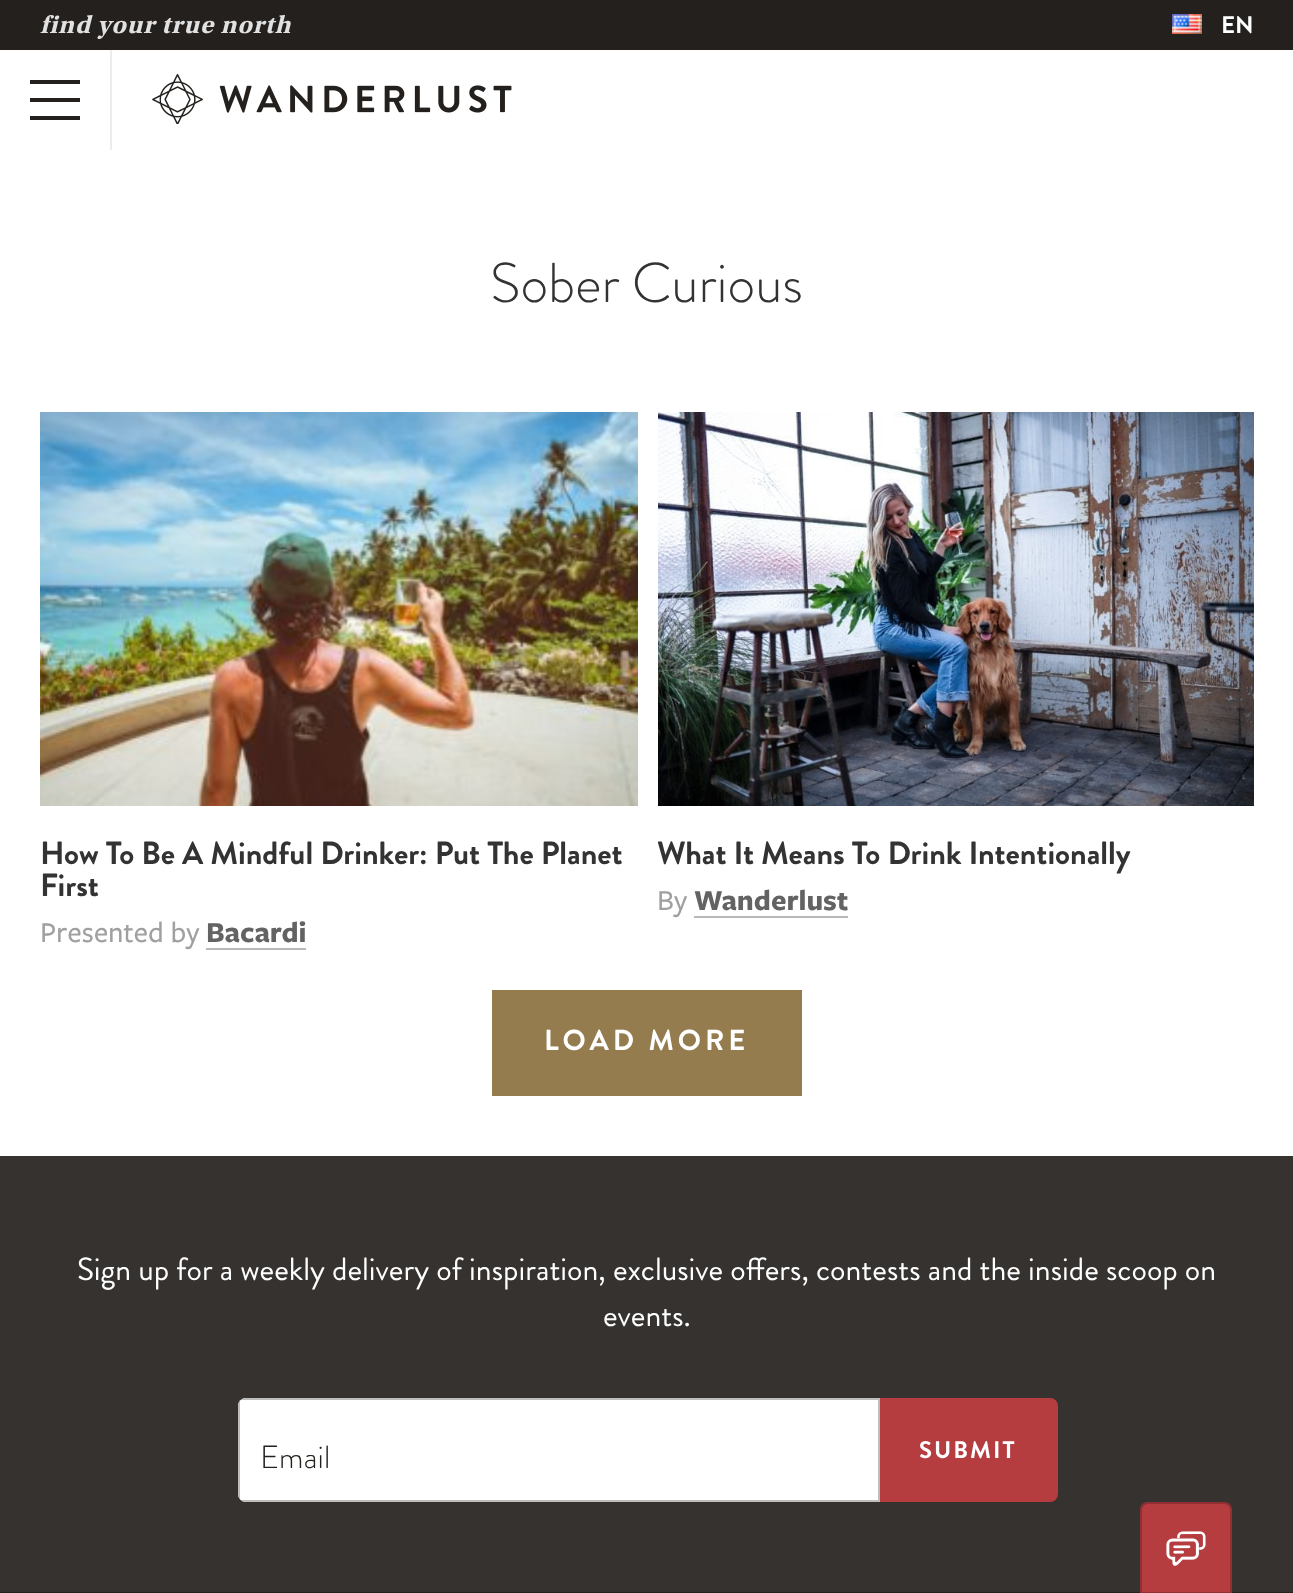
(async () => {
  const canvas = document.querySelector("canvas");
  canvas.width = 1293;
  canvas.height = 1593;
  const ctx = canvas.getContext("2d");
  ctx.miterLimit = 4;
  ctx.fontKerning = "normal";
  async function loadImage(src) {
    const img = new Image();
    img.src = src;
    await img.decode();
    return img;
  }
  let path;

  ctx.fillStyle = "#ffffff";
  ctx.fillRect(0, 0, 1293, 1593);
  ctx.fillStyle = "#23201d";
  ctx.fillRect(0, 0, 1293, 50);
  ctx.drawImage(await loadImage("img/1.png"), 1172, 14, 30, 20);
  for (const [x, y, w, h, color] of [
    [110, 50, 2, 100, "#ececeb"],
    [30, 80, 50, 4, "#23201d"],
    [30, 98, 50, 4, "#23201d"],
    [30, 116, 50, 4, "#23201d"],
  ]) {
    ctx.fillStyle = color;
    ctx.fillRect(x, y, w, h);
  }
  ctx.drawImage(await loadImage("img/2.png"), 152, 74, 360, 50);
  ctx.drawImage(await loadImage("img/3.png"), 40, 412, 598, 394);
  ctx.fillStyle = "#b8b8b8";
  ctx.fillRect(206, 948, 100, 2);
  ctx.drawImage(await loadImage("img/4.png"), 658, 412, 596, 394);
  for (const [x, y, w, h, color] of [
    [694, 916, 154, 2, "#b8b8b8"],
    [492, 990, 310, 106, "#947c4e"],
    [0, 1156, 1293, 436, "#353230"],
  ]) {
    ctx.fillStyle = color;
    ctx.fillRect(x, y, w, h);
  }
  ctx.fillStyle = "#ffffff";
  ctx.beginPath();
  ctx.roundRect(238, 1398, 642, 104, [8, 0, 0, 8]);
  ctx.fill();
  ctx.fillStyle = "#bdbdbd";
  path = new Path2D("M238 1406V1494C238 1496 239 1498 240 1499V1401C239 1402 238 1404 238 1406ZM246 1398C244 1398 242 1399 241 1400H878V1500H241C242 1501 244 1502 246 1502H880V1398Z");
  ctx.fill(path, "evenodd");
  ctx.fillStyle = "#b53c3f";
  ctx.beginPath();
  ctx.roundRect(880, 1398, 178, 104, [0, 8, 8, 0]);
  ctx.fill();
  ctx.fillStyle = "#23201d";
  ctx.fillRect(0, 1592, 1293, 1);
  ctx.fillStyle = "#b53c3f";
  path = new Path2D("M1148 1502H1224C1228.5 1502 1232 1505.5 1232 1510V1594H1140V1510C1140 1505.5 1143.5 1502 1148 1502Z");
  ctx.fill(path);
  ctx.drawImage(await loadImage("img/5.png"), 1166, 1531, 40, 35);
  path = new Path2D("M1148 1503H1224C1228 1503 1231 1506 1231 1510V1593H1141V1510C1141 1506 1144 1503 1148 1503Z");
  ctx.strokeStyle = "rgba(0, 0, 0, 0.2)";
  ctx.lineWidth = 2;
  ctx.stroke(path);
  ctx.letterSpacing = "1px";
  ctx.font = "italic bold 26px Utopia";
  ctx.fillStyle = "#e1e1e1";
  ctx.fillText("find your true north", 40, 33);
  ctx.letterSpacing = "0px";
  ctx.font = "bold 24px Brandon Grotesque";
  ctx.fillStyle = "#ffffff";
  ctx.fillText("EN", 1221, 33);
  ctx.font = "300 56px Brandon Grotesque";
  ctx.fillStyle = "#333333";
  ctx.fillText("Sober Curious", 490, 302);
  ctx.font = "bold 32px Brandon Grotesque";
  ctx.fillText("How To Be A Mindful Drinker: Put The Planet", 40, 864);
  ctx.fillText("First", 40, 896);
  ctx.font = "500 30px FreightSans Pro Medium";
  ctx.fillStyle = "#a0a0a0";
  ctx.fillText("Presented by", 40, 942);
  ctx.font = "bold 30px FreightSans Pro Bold";
  ctx.fillStyle = "#636363";
  ctx.fillText("Bacardi", 206, 942);
  ctx.font = "bold 32px Brandon Grotesque";
  ctx.fillStyle = "#333333";
  ctx.fillText("What It Means To Drink Intentionally", 657, 864);
  ctx.font = "500 30px FreightSans Pro Medium";
  ctx.fillStyle = "#a0a0a0";
  ctx.fillText("By", 657, 910);
  ctx.font = "bold 30px FreightSans Pro Bold";
  ctx.fillStyle = "#636363";
  ctx.fillText("Wanderlust", 694, 910);
  ctx.letterSpacing = "4px";
  ctx.font = "bold 29px Brandon Grotesque";
  ctx.fillStyle = "#ffffff";
  ctx.fillText("LOAD MORE", 544, 1050);
  ctx.letterSpacing = "0px";
  ctx.font = "32px Brandon Grotesque";
  ctx.fillText("Sign up for a weekly delivery of inspiration, exclusive offers, contests and the inside scoop on", 77, 1280);
  ctx.fillText("events.", 603, 1326);
  ctx.letterSpacing = "0.25px";
  ctx.font = "300 32px Brandon Grotesque";
  ctx.fillStyle = "#23201d";
  ctx.fillText("Email", 260, 1468);
  ctx.letterSpacing = "2px";
  ctx.font = "bold 24px Brandon Grotesque";
  ctx.fillStyle = "#ffffff";
  ctx.fillText("SUBMIT", 919, 1458);
})();
